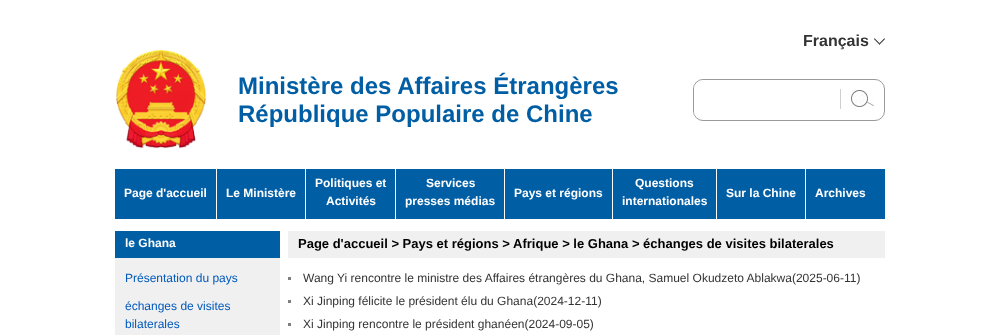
(async () => {
  const canvas = document.querySelector("canvas");
  canvas.width = 1000;
  canvas.height = 335;
  const ctx = canvas.getContext("2d");
  ctx.miterLimit = 4;
  ctx.fontKerning = "normal";
  async function loadImage(src) {
    const img = new Image();
    img.src = src;
    await img.decode();
    return img;
  }

  ctx.fillStyle = "#ffffff";
  ctx.fillRect(0, 0, 1000, 335);
  ctx.drawImage(await loadImage("img/1.png"), 874, 38, 11, 7);
  ctx.drawImage(await loadImage("img/2.png"), 116, 50, 91, 99);
  ctx.beginPath();
  ctx.roundRect(693.5, 79.5, 191, 41, 9.5);
  ctx.strokeStyle = "#9b9a9a";
  ctx.stroke();
  ctx.save();
  ctx.beginPath();
  ctx.roundRect(694, 80, 190, 40, 9);
  ctx.clip();
  ctx.beginPath();
  ctx.roundRect(694, 80, 146, 38, [9, 0, 0, 0]);
  ctx.fill();
  ctx.restore();
  ctx.fillStyle = "#cfcfcf";
  ctx.fillRect(840, 89, 1, 20);
  ctx.drawImage(await loadImage("img/3.png"), 851, 90, 23, 17);
  for (const [x, y, w, h, color] of [
    [115, 169, 770, 50, "#005ea5"],
    [216, 169, 1, 50, "#ffffff"],
    [305, 169, 1, 50, "#ffffff"],
    [395, 169, 1, 50, "#ffffff"],
    [504, 169, 1, 50, "#ffffff"],
    [612, 169, 1, 50, "#ffffff"],
    [716, 169, 1, 50, "#ffffff"],
    [805, 169, 1, 50, "#ffffff"],
    [115, 258, 165, 77, "#f0f0f0"],
    [115, 231, 165, 27, "#005ea5"],
    [288, 231, 597, 27, "#f0f0f0"],
    [288, 277, 3, 3, "#7f7f7f"],
    [288, 300, 3, 3, "#7f7f7f"],
    [288, 323, 3, 3, "#7f7f7f"],
  ]) {
    ctx.fillStyle = color;
    ctx.fillRect(x, y, w, h);
  }
  ctx.font = "bold 16px Liberation Sans";
  ctx.fillStyle = "#333333";
  ctx.fillText("Français", 803, 46);
  ctx.font = "bold 24px Liberation Sans";
  ctx.fillStyle = "#005ea5";
  ctx.fillText("Ministère des Affaires Étrangères", 238, 94);
  ctx.fillText("République Populaire de Chine", 238, 122);
  ctx.font = "bold 12px Liberation Sans";
  ctx.fillStyle = "#ffffff";
  for (const [text, x, y] of [
    ["Page d'accueil", 124, 197],
    ["Le Ministère", 226, 197],
    ["Politiques et", 315, 187],
    ["Activités", 326, 205],
    ["Services", 426, 187],
    ["presses médias", 405, 205],
    ["Pays et régions", 514, 197],
    ["Questions", 635, 187],
    ["internationales", 622, 205],
    ["Sur la Chine", 726, 197],
    ["Archives", 815, 197],
    ["le Ghana", 125, 247],
  ]) {
    ctx.fillText(text, x, y);
  }
  ctx.font = "12px Liberation Sans";
  ctx.fillStyle = "#0159bb";
  for (const [text, x, y] of [
    ["Présentation du pays", 125, 282],
    ["échanges de visites", 125, 310],
    ["bilaterales", 125, 328],
  ]) {
    ctx.fillText(text, x, y);
  }
  ctx.font = "bold 13px Liberation Sans";
  ctx.fillStyle = "#000000";
  ctx.fillText("Page d'accueil > Pays et régions > Afrique > le Ghana > échanges de visites bilaterales", 298, 248);
  ctx.font = "12px Liberation Sans";
  ctx.fillStyle = "#333333";
  for (const [text, x, y] of [
    ["Wang Yi rencontre le ministre des Affaires étrangères du Ghana, Samuel Okudzeto Ablakwa(2025-06-11)", 303, 282],
    ["Xi Jinping félicite le président élu du Ghana(2024-12-11)", 303, 305],
    ["Xi Jinping rencontre le président ghanéen(2024-09-05)", 303, 328],
  ]) {
    ctx.fillText(text, x, y);
  }
})();
